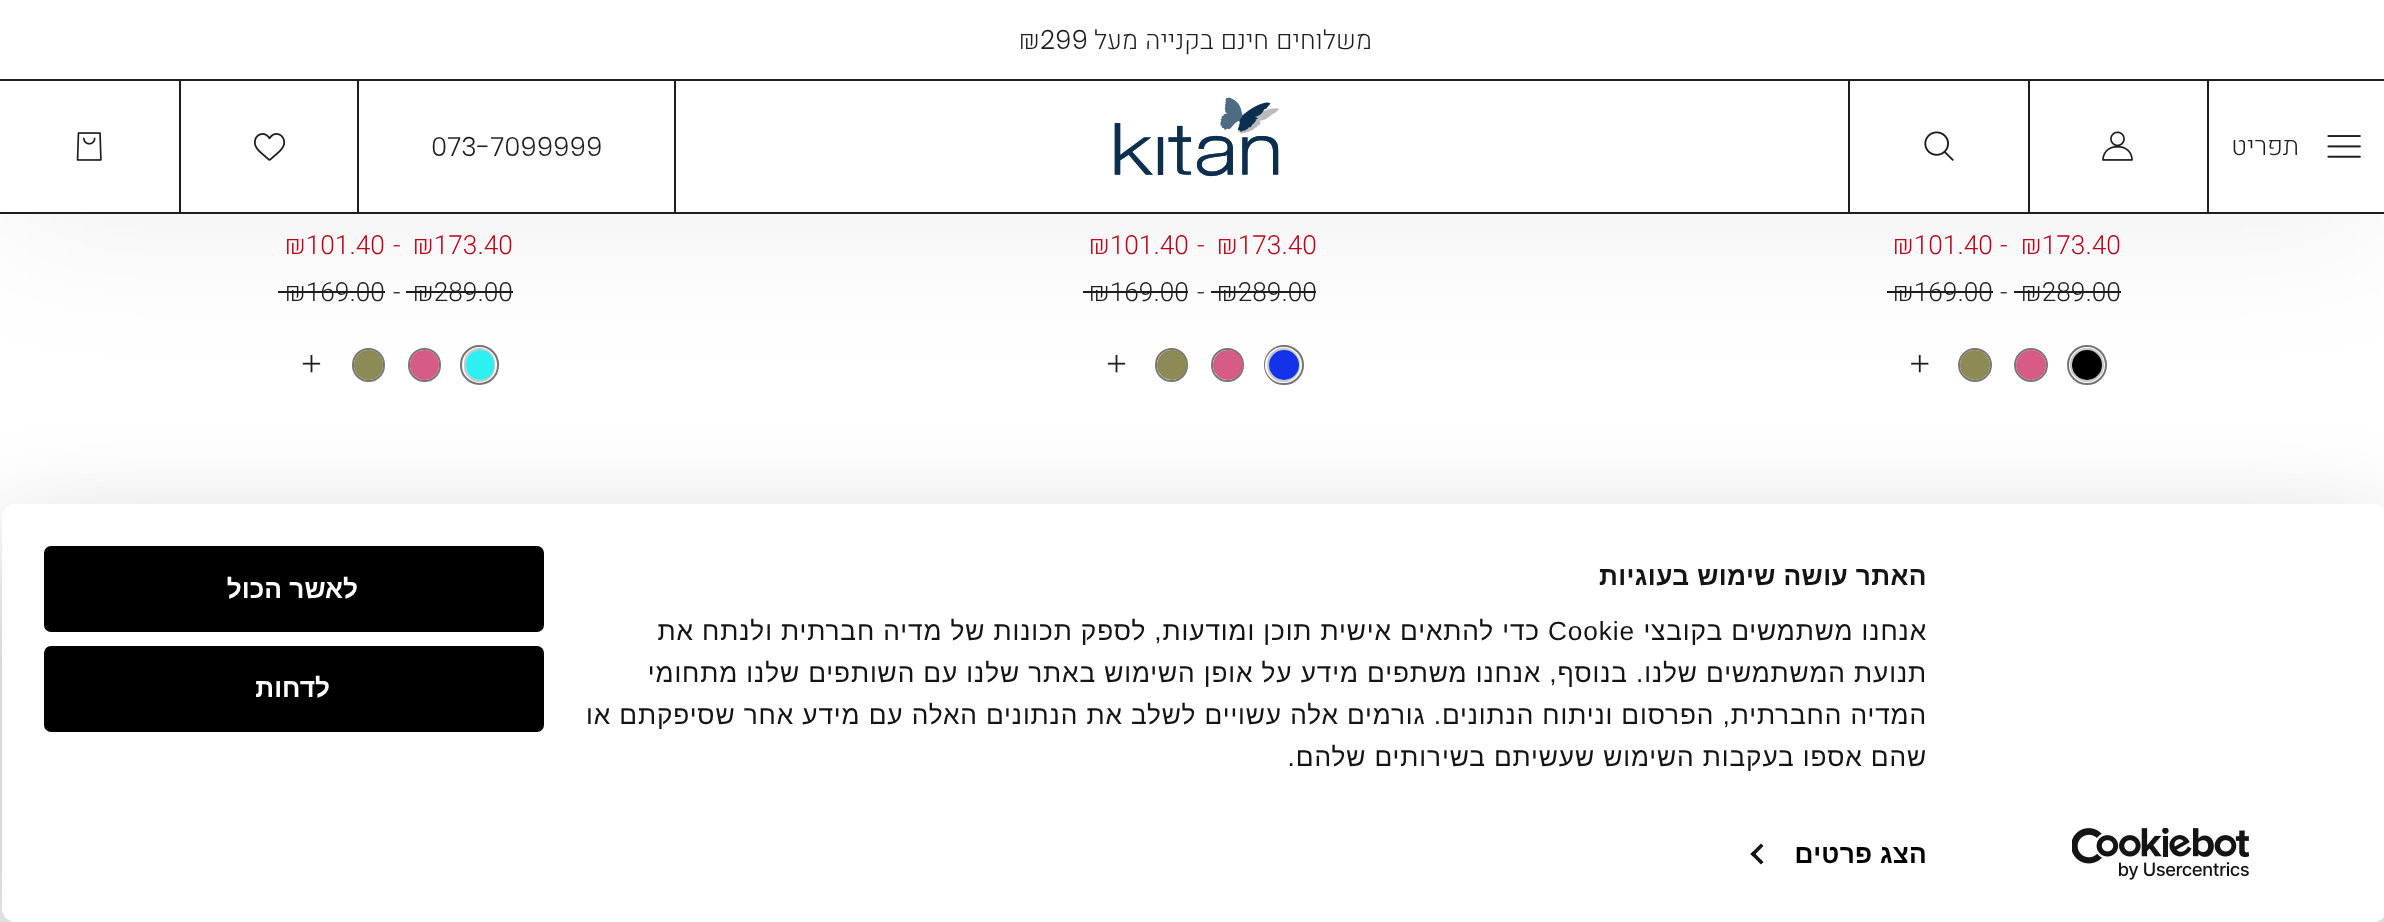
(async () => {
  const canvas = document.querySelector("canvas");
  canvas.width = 2384;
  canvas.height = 922;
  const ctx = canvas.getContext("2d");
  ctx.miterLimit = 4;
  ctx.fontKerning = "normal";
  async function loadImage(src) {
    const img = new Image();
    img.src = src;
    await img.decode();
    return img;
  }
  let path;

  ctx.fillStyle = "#ffffff";
  ctx.fillRect(0, 0, 2384, 922);
  ctx.fillStyle = "#1e1e1e";
  ctx.fillRect(2014, 291, 107, 2);
  ctx.fillRect(1887, 291, 106, 2);
  ctx.beginPath();
  ctx.arc(2087, 365, 17.5, 0, Math.PI * 2);
  ctx.strokeStyle = "#757575";
  ctx.lineWidth = 5;
  ctx.stroke();
  ctx.beginPath();
  ctx.arc(2087, 365, 16, 0, Math.PI * 2);
  ctx.strokeStyle = "#ffffff";
  ctx.lineWidth = 4;
  ctx.stroke();
  ctx.beginPath();
  ctx.arc(2087, 365, 16, 0, Math.PI * 2);
  ctx.strokeStyle = "#c7c7c7";
  ctx.lineWidth = 2;
  ctx.stroke();
  ctx.fillStyle = "#000000";
  ctx.beginPath();
  ctx.arc(2087, 365, 15, 0, Math.PI * 2);
  ctx.fill();
  ctx.beginPath();
  ctx.arc(2031, 365, 16, 0, Math.PI * 2);
  ctx.strokeStyle = "#787878";
  ctx.stroke();
  ctx.fillStyle = "#d65c87";
  ctx.beginPath();
  ctx.arc(2031, 365, 15, 0, Math.PI * 2);
  ctx.fill();
  ctx.beginPath();
  ctx.arc(1975, 365, 16, 0, Math.PI * 2);
  ctx.stroke();
  ctx.fillStyle = "#8d8b55";
  ctx.beginPath();
  ctx.arc(1975, 365, 15, 0, Math.PI * 2);
  ctx.fill();
  ctx.drawImage(await loadImage("img/7.png"), 1911, 354, 18, 19);
  ctx.fillStyle = "#1e1e1e";
  ctx.fillRect(1211, 291, 105, 2);
  ctx.fillRect(1083, 291, 105, 2);
  ctx.beginPath();
  ctx.arc(1284, 365, 17.5, 0, Math.PI * 2);
  ctx.strokeStyle = "#757575";
  ctx.lineWidth = 5;
  ctx.stroke();
  ctx.beginPath();
  ctx.roundRect(1267, 349, 33, 32, 16);
  ctx.strokeStyle = "#ffffff";
  ctx.lineWidth = 4;
  ctx.stroke();
  ctx.beginPath();
  ctx.roundRect(1268, 349, 31, 32, 15.5);
  ctx.strokeStyle = "rgba(30, 30, 30, 0.25)";
  ctx.lineWidth = 2;
  ctx.stroke();
  ctx.fillStyle = "#1532eb";
  ctx.beginPath();
  ctx.arc(1284, 365, 15, 0, Math.PI * 2);
  ctx.fill();
  ctx.beginPath();
  ctx.roundRect(1212, 349, 31, 32, 15.5);
  ctx.strokeStyle = "#787878";
  ctx.stroke();
  ctx.fillStyle = "#d65c87";
  ctx.beginPath();
  ctx.arc(1228, 365, 15, 0, Math.PI * 2);
  ctx.fill();
  ctx.beginPath();
  ctx.roundRect(1156, 349, 31, 32, 15.5);
  ctx.stroke();
  ctx.fillStyle = "#8d8b55";
  ctx.beginPath();
  ctx.arc(1172, 365, 15, 0, Math.PI * 2);
  ctx.fill();
  ctx.drawImage(await loadImage("img/8.png"), 1107, 354, 19, 19);
  ctx.fillStyle = "#1e1e1e";
  ctx.fillRect(406, 291, 107, 2);
  ctx.fillRect(278, 291, 107, 2);
  ctx.beginPath();
  ctx.roundRect(462.5, 347.5, 34, 35, 17);
  ctx.strokeStyle = "#757575";
  ctx.lineWidth = 5;
  ctx.stroke();
  ctx.beginPath();
  ctx.roundRect(464, 349, 31, 32, 15.5);
  ctx.strokeStyle = "#ffffff";
  ctx.lineWidth = 4;
  ctx.stroke();
  ctx.beginPath();
  ctx.roundRect(465, 349, 29, 32, 14.5);
  ctx.strokeStyle = "#c7c7c7";
  ctx.lineWidth = 2;
  ctx.stroke();
  ctx.fillStyle = "#2df0f0";
  ctx.beginPath();
  ctx.roundRect(466, 350, 28, 30, 14);
  ctx.fill();
  ctx.beginPath();
  ctx.roundRect(409, 349, 31, 32, 15.5);
  ctx.strokeStyle = "#787878";
  ctx.stroke();
  ctx.fillStyle = "#d65c87";
  ctx.beginPath();
  ctx.roundRect(410, 350, 29, 30, 14.5);
  ctx.fill();
  ctx.beginPath();
  ctx.roundRect(353, 349, 31, 32, 15.5);
  ctx.stroke();
  ctx.fillStyle = "#8d8b55";
  ctx.beginPath();
  ctx.roundRect(354, 350, 29, 30, 14.5);
  ctx.fill();
  ctx.drawImage(await loadImage("img/8.png"), 302, 354, 19, 19);
  ctx.fillStyle = "rgba(0, 0, 0, 0.07)";
  ctx.filter = "blur(79px)";
  ctx.beginPath();
  ctx.rect(0, 0, 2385, 214);
  ctx.fill();
  ctx.filter = "none";
  for (const [x, y, w, h, color] of [
    [0, 0, 2384, 212, "#ffffff"],
    [0, 79, 2384, 2, "#1e1e1e"],
    [0, 212, 2384, 2, "#1e1e1e"],
    [2207, 81, 2, 131, "#1e1e1e"],
  ]) {
    ctx.fillStyle = color;
    ctx.fillRect(x, y, w, h);
  }
  ctx.drawImage(await loadImage("img/1.png"), 2327, 135, 34, 23);
  ctx.fillRect(2028, 81, 2, 131);
  ctx.drawImage(await loadImage("img/2.png"), 2102, 131, 31, 30);
  ctx.fillRect(1848, 81, 2, 131);
  ctx.drawImage(await loadImage("img/3.png"), 1924, 131, 30, 30);
  ctx.fillRect(674, 81, 2, 131);
  ctx.drawImage(await loadImage("img/4.png"), 1114, 97, 165, 80);
  ctx.fillRect(357, 81, 2, 131);
  ctx.fillRect(179, 81, 2, 131);
  ctx.drawImage(await loadImage("img/5.png"), 253, 133, 33, 28);
  ctx.drawImage(await loadImage("img/6.png"), 76, 132, 26, 29);
  ctx.save();
  path = new Path2D("M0 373H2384V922H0ZM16 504H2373C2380.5 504 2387 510.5 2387 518V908C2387 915.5 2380.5 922 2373 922H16C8.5 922 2 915.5 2 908V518C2 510.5 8.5 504 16 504Z");
  ctx.clip(path, "evenodd");
  ctx.fillStyle = "rgba(0, 0, 0, 0.3)";
  ctx.filter = "blur(61px)";
  ctx.beginPath();
  ctx.roundRect(2, 557, 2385, 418, 14);
  ctx.fill();
  ctx.filter = "none";
  ctx.restore();
  ctx.fillStyle = "#ffffff";
  ctx.beginPath();
  ctx.roundRect(2, 504, 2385, 418, 14);
  ctx.fill();
  ctx.fillStyle = "#141414";
  path = new Path2D("M1761 864.5L1750.5 854L1753 851.5L1763.5 862Z");
  ctx.fill(path);
  path = new Path2D("M1753 856.5L1750.5 854L1761 843.5L1763.5 846Z");
  ctx.fill(path);
  ctx.fillStyle = "#000000";
  ctx.beginPath();
  ctx.roundRect(46, 548, 496, 82, 5);
  ctx.fill();
  ctx.strokeStyle = "#000000";
  ctx.lineWidth = 4;
  ctx.stroke();
  ctx.beginPath();
  ctx.roundRect(46, 648, 496, 82, 5);
  ctx.fill();
  ctx.stroke();
  ctx.drawImage(await loadImage("img/9.png"), 2072, 828, 177, 52);
  ctx.wordSpacing = "1px";
  ctx.direction = "rtl";
  ctx.font = "300 26.25px Heebo";
  ctx.fillStyle = "#1e1e1e";
  ctx.fillText("משלוחים חינם בקנייה מעל", 1372, 49);
  ctx.wordSpacing = "0px";
  ctx.direction = "ltr";
  ctx.font = "300 26.25px Poppins";
  ctx.fillText("299", 1040, 49);
  ctx.font = "300 26.25px Heebo";
  ctx.fillText("₪", 1019, 49);
  ctx.direction = "rtl";
  ctx.fillText("תפריט", 2299, 155);
  ctx.direction = "ltr";
  ctx.font = "300 26.25px Poppins";
  ctx.fillText("073-7099999", 431, 156);
  ctx.font = "300 26.25px Heebo";
  ctx.fillStyle = "#bd0017";
  for (const [text, x, y] of [
    ["₪173.40", 2021, 254],
    ["-", 2000, 254],
    ["₪101.40", 1893, 254],
  ]) {
    ctx.fillText(text, x, y);
  }
  ctx.fillStyle = "#1e1e1e";
  for (const [text, x, y] of [
    ["₪289.00", 2021, 301],
    ["-", 2000, 301],
    ["₪169.00", 1893, 301],
  ]) {
    ctx.fillText(text, x, y);
  }
  ctx.fillStyle = "#bd0017";
  for (const [text, x, y] of [
    ["₪173.40", 1217, 254],
    ["-", 1197, 254],
    ["₪101.40", 1089, 254],
  ]) {
    ctx.fillText(text, x, y);
  }
  ctx.fillStyle = "#1e1e1e";
  for (const [text, x, y] of [
    ["₪289.00", 1217, 301],
    ["-", 1197, 301],
    ["₪169.00", 1089, 301],
  ]) {
    ctx.fillText(text, x, y);
  }
  ctx.fillStyle = "#bd0017";
  for (const [text, x, y] of [
    ["₪173.40", 413, 254],
    ["-", 393, 254],
    ["₪101.40", 285, 254],
  ]) {
    ctx.fillText(text, x, y);
  }
  ctx.fillStyle = "#1e1e1e";
  for (const [text, x, y] of [
    ["₪289.00", 413, 301],
    ["-", 393, 301],
    ["₪169.00", 285, 301],
  ]) {
    ctx.fillText(text, x, y);
  }
  ctx.letterSpacing = "0.4px";
  ctx.direction = "rtl";
  ctx.font = "bold 26.25px Liberation Sans";
  ctx.fillStyle = "#141414";
  ctx.fillText("האתר עושה שימוש בעוגיות", 1927, 585);
  ctx.letterSpacing = "0.88px";
  ctx.font = "26.25px Liberation Sans";
  ctx.fillText("אנחנו משתמשים בקובצי", 1927, 640);
  ctx.direction = "ltr";
  ctx.fillText("Cookie", 1548, 640);
  ctx.direction = "rtl";
  for (const [text, x, y] of [
    ["כדי להתאים אישית תוכן ומודעות, לספק תכונות של מדיה חברתית ולנתח את", 1540, 640],
    ["תנועת המשתמשים שלנו. בנוסף, אנחנו משתפים מידע על אופן השימוש באתר שלנו עם השותפים שלנו מתחומי", 1927, 682],
    ["המדיה החברתית, הפרסום וניתוח הנתונים. גורמים אלה עשויים לשלב את הנתונים האלה עם מידע אחר שסיפקתם או", 1927, 724],
    ["שהם אספו בעקבות השימוש שעשיתם בשירותים שלהם.", 1927, 766],
  ]) {
    ctx.fillText(text, x, y);
  }
  ctx.letterSpacing = "0.25px";
  ctx.font = "bold 26.25px Liberation Sans";
  ctx.fillStyle = "#000000";
  ctx.fillText("הצג פרטים", 1927, 863);
  ctx.letterSpacing = "0px";
  ctx.fillStyle = "#ffffff";
  ctx.fillText("לאשר הכול", 358, 598);
  ctx.fillText("לדחות", 330, 697);
})();
